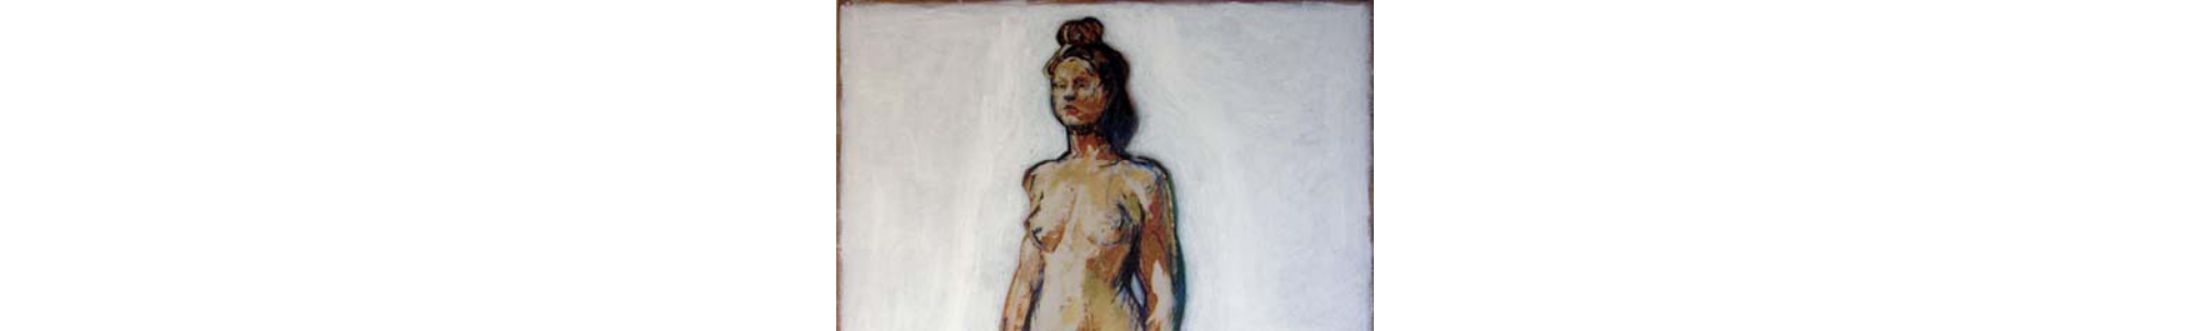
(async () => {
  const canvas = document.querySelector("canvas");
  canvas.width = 2208;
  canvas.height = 331;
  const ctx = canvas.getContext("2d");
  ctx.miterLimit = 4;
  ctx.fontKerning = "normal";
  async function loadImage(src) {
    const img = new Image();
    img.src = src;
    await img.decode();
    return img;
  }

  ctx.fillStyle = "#ffffff";
  ctx.fillRect(0, 0, 2208, 331);
  ctx.drawImage(await loadImage("img/1.png"), 836, 0, 538, 331);
})();
